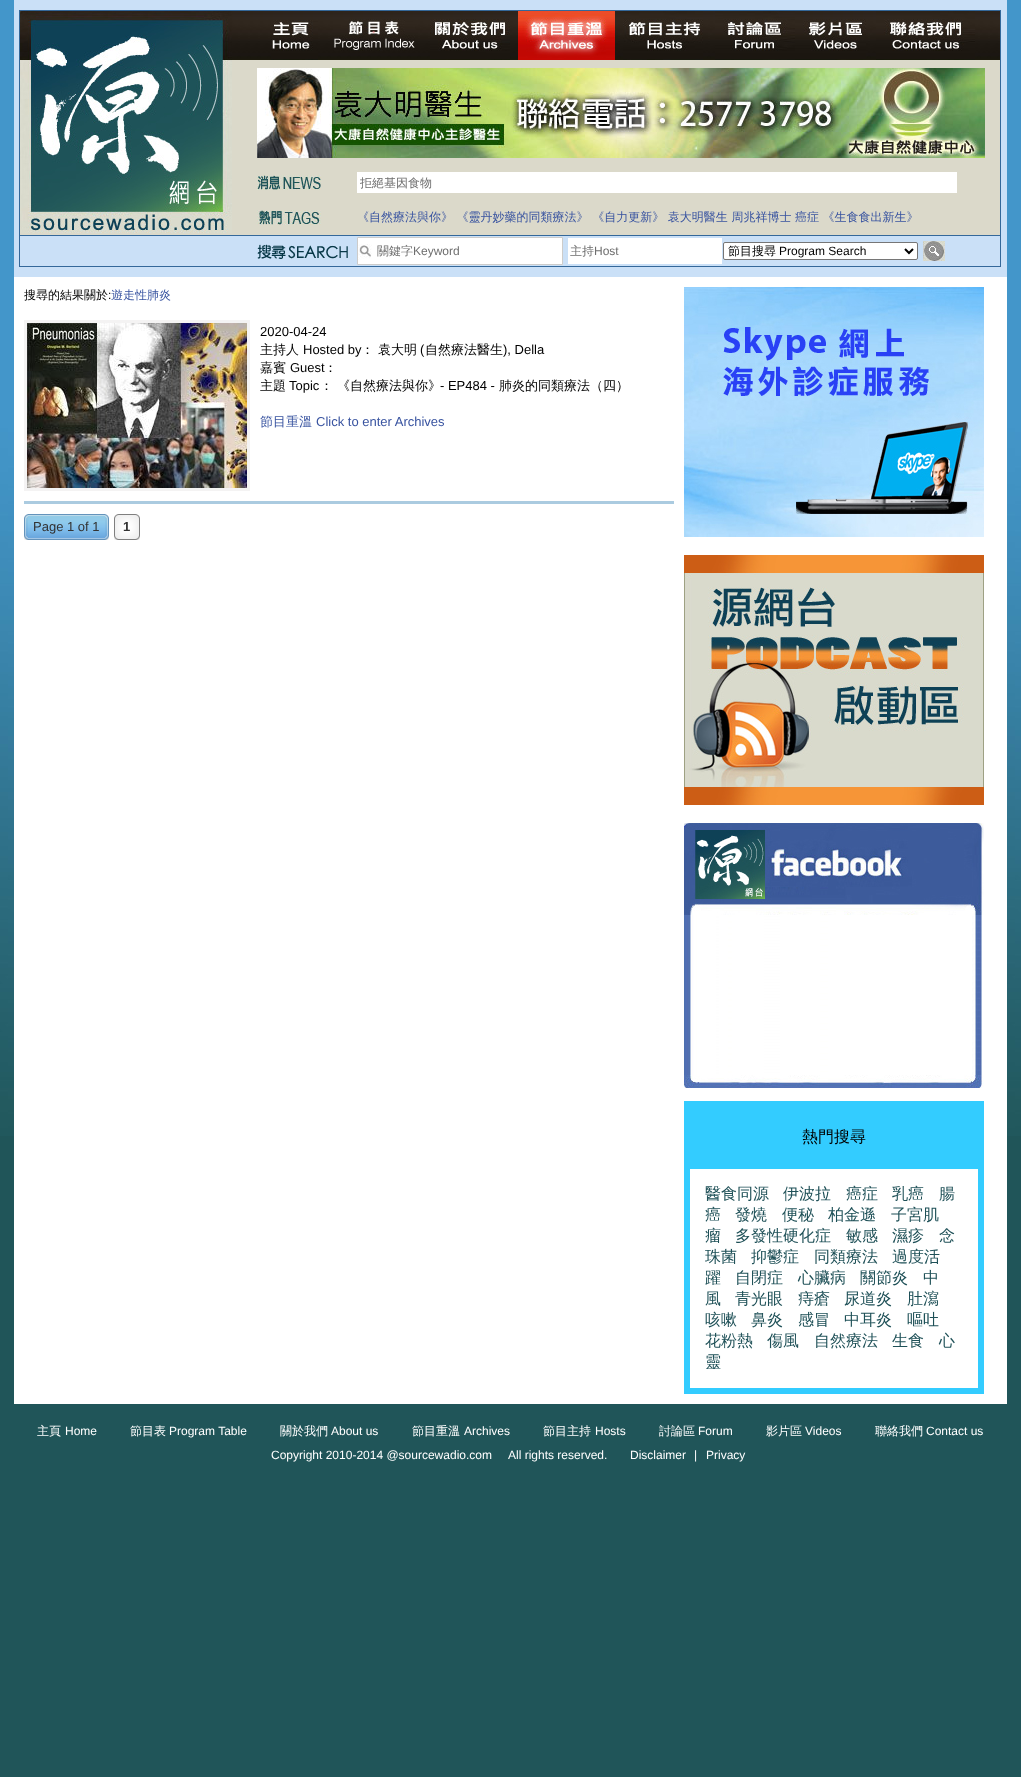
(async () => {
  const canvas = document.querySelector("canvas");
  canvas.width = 1021;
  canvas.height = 1777;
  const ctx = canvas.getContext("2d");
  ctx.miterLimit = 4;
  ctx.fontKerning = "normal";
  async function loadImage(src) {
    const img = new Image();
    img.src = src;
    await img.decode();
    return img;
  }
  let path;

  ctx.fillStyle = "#205559";
  ctx.fillRect(0, 0, 1021, 1777);
  ctx.drawImage(await loadImage("img/1.png"), 0, 0, 1021, 1136);
  ctx.fillStyle = "#cae0f7";
  ctx.fillRect(14, 0, 993, 277);
  ctx.fillStyle = "#dbd9ca";
  ctx.fillRect(20, 60, 980, 175);
  ctx.drawImage(await loadImage("img/2.png"), 232, 11, 768, 49);
  ctx.strokeStyle = "#34689a";
  ctx.strokeRect(19.5, 10.5, 981, 256);
  ctx.drawImage(await loadImage("img/3.png"), 20, 11, 212, 222);
  ctx.drawImage(await loadImage("img/4.png"), 271, 20, 47, 40);
  ctx.drawImage(await loadImage("img/5.png"), 333, 19, 82, 32);
  ctx.drawImage(await loadImage("img/6.png"), 430, 19, 80, 41);
  ctx.drawImage(await loadImage("img/7.png"), 518, 11, 97, 49);
  ctx.drawImage(await loadImage("img/8.png"), 623, 11, 80, 49);
  ctx.drawImage(await loadImage("img/9.png"), 715, 11, 80, 49);
  ctx.drawImage(await loadImage("img/10.png"), 795, 19, 71, 41);
  ctx.drawImage(await loadImage("img/11.png"), 876, 11, 99, 49);
  ctx.drawImage(await loadImage("img/12.png"), 257, 68, 728, 90);
  ctx.drawImage(await loadImage("img/13.png"), 257, 175, 64, 15);
  ctx.fillStyle = "#ffffff";
  ctx.fillRect(357, 172, 600, 21);
  ctx.drawImage(await loadImage("img/14.png"), 257, 210, 64, 15);
  ctx.fillStyle = "#34689a";
  ctx.fillRect(20, 235, 980, 1);
  ctx.drawImage(await loadImage("img/15.png"), 257, 244, 91, 15);
  ctx.fillStyle = "#ffffff";
  ctx.beginPath();
  ctx.rect(357.5, 237.5, 205, 27);
  ctx.fill();
  ctx.strokeStyle = "#cdccca";
  ctx.stroke();
  ctx.drawImage(await loadImage("img/16.png"), 358, 244, 14, 16);
  ctx.fillRect(568, 238, 154, 26);
  ctx.beginPath();
  ctx.roundRect(723.5, 242.5, 194, 17, 1.5);
  ctx.fill();
  ctx.strokeStyle = "#767676";
  ctx.stroke();
  path = new Path2D("M905 249L909 253L913 249");
  ctx.strokeStyle = "#000000";
  ctx.lineWidth = 2;
  ctx.stroke(path);
  ctx.drawImage(await loadImage("img/17.png"), 923, 241, 22, 20);
  ctx.fillRect(14, 277, 993, 1127);
  ctx.fillStyle = "#abcbe0";
  ctx.fillRect(24, 501, 650, 3);
  ctx.strokeStyle = "#f4f3f3";
  ctx.lineWidth = 3;
  ctx.strokeRect(25.5, 321.5, 223, 168);
  ctx.drawImage(await loadImage("img/18.png"), 27, 323, 220, 165);
  ctx.drawImage(await loadImage("img/19.png"), 24, 514, 4, 26);
  ctx.drawImage(await loadImage("img/20.png"), 28, 514, 77, 26);
  ctx.drawImage(await loadImage("img/21.png"), 105, 514, 4, 26);
  ctx.drawImage(await loadImage("img/22.png"), 114, 514, 26, 26);
  ctx.drawImage(await loadImage("img/23.png"), 684, 287, 300, 250);
  ctx.drawImage(await loadImage("img/24.png"), 684, 555, 300, 250);
  ctx.drawImage(await loadImage("img/25.png"), 684, 823, 300, 92);
  ctx.drawImage(await loadImage("img/26.png"), 684, 915, 298, 160);
  ctx.drawImage(await loadImage("img/27.png"), 684, 1075, 300, 13);
  ctx.strokeStyle = "#33ccff";
  ctx.lineWidth = 5;
  ctx.strokeRect(686.5, 1103.5, 295, 288);
  ctx.fillStyle = "#33ccff";
  ctx.fillRect(689, 1106, 290, 62);
  ctx.lineWidth = 1;
  ctx.strokeRect(689.5, 1168.5, 289, 220);
  ctx.font = "500 12px WenQuanYi Zen Hei";
  ctx.fillStyle = "#6e6e6e";
  ctx.fillText("拒絕基因食物", 360, 187);
  ctx.fillStyle = "#3853a0";
  ctx.fillText("《自然療法與你》 《靈丹妙藥的同類療法》 《自力更新》 袁大明醫生 周兆祥博士 癌症 《生食食出新生》", 357, 221);
  ctx.fillStyle = "#6e6e6e";
  ctx.fillText("關鍵字", 377, 255);
  ctx.font = "12px Liberation Sans";
  ctx.fillText("Keyword", 413, 255);
  ctx.font = "500 12px WenQuanYi Zen Hei";
  ctx.fillText("主持", 570, 255);
  ctx.font = "12px Liberation Sans";
  ctx.fillText("Host", 594, 255);
  ctx.font = "500 12px WenQuanYi Zen Hei";
  ctx.fillStyle = "#000000";
  ctx.fillText("節目搜尋", 728, 255);
  ctx.font = "12px Liberation Sans";
  ctx.fillText("Program Search", 779, 255);
  ctx.font = "500 12px WenQuanYi Zen Hei";
  ctx.fillText("搜尋的結果關於", 24, 299);
  ctx.font = "12px Liberation Sans";
  ctx.fillText(":", 108, 299);
  ctx.font = "500 12px WenQuanYi Zen Hei";
  ctx.fillStyle = "#3853a0";
  ctx.fillText("遊走性肺炎", 111, 299);
  ctx.font = "13px Liberation Sans";
  ctx.fillStyle = "#000000";
  ctx.fillText("2020-04-24", 260, 336);
  ctx.font = "500 13px WenQuanYi Zen Hei";
  ctx.fillText("主持人", 260, 354);
  ctx.font = "13px Liberation Sans";
  ctx.fillText("Hosted by", 303, 354);
  ctx.font = "500 13px WenQuanYi Zen Hei";
  ctx.fillText("： 袁大明", 361, 354);
  ctx.font = "13px Liberation Sans";
  ctx.fillText("(", 420, 354);
  ctx.font = "500 13px WenQuanYi Zen Hei";
  ctx.fillText("自然療法醫生", 425, 354);
  ctx.font = "13px Liberation Sans";
  ctx.fillText("), Della", 503, 354);
  ctx.font = "500 13px WenQuanYi Zen Hei";
  ctx.fillText("嘉賓", 260, 372);
  ctx.font = "13px Liberation Sans";
  ctx.fillText("Guest", 290, 372);
  ctx.font = "500 13px WenQuanYi Zen Hei";
  ctx.fillText("：", 324, 372);
  ctx.fillText("主題", 260, 390);
  ctx.font = "13px Liberation Sans";
  ctx.fillText("Topic", 289, 390);
  ctx.font = "500 13px WenQuanYi Zen Hei";
  ctx.fillText("： 《自然療法與你》", 320, 390);
  ctx.font = "13px Liberation Sans";
  ctx.fillText("- EP484 -", 440, 390);
  ctx.font = "500 13px WenQuanYi Zen Hei";
  ctx.fillText("肺炎的同類療法（四）", 499, 390);
  ctx.fillStyle = "#3853a0";
  ctx.fillText("節目重溫", 260, 426);
  ctx.font = "13px Liberation Sans";
  ctx.fillText("Click to enter Archives", 316, 426);
  ctx.fillStyle = "#333333";
  ctx.fillText("Page 1 of 1", 33, 531);
  ctx.font = "bold 13px Liberation Sans";
  ctx.fillText("1", 123, 531);
  ctx.font = "500 16px WenQuanYi Zen Hei";
  ctx.fillStyle = "#000000";
  ctx.fillText("熱門搜尋", 802, 1142);
  ctx.fillStyle = "#1e5057";
  for (const [text, x, y] of [
    ["醫食同源", 705, 1199],
    ["伊波拉", 783, 1199],
    ["癌症", 846, 1199],
    ["乳癌", 892, 1199],
    ["腸", 939, 1199],
    ["癌", 705, 1220],
    ["發燒", 735, 1220],
    ["便秘", 782, 1220],
    ["柏金遜", 828, 1220],
    ["子宮肌", 891, 1220],
    ["瘤", 705, 1241],
    ["多發性硬化症", 735, 1241],
    ["敏感", 846, 1241],
    ["濕疹", 892, 1241],
    ["念", 939, 1241],
    ["珠菌", 705, 1262],
    ["抑鬱症", 751, 1262],
    ["同類療法", 814, 1262],
    ["過度活", 892, 1262],
    ["躍", 705, 1283],
    ["自閉症", 735, 1283],
    ["心臟病", 798, 1283],
    ["關節炎", 860, 1283],
    ["中", 923, 1283],
    ["風", 705, 1304],
    ["青光眼", 735, 1304],
    ["痔瘡", 798, 1304],
    ["尿道炎", 844, 1304],
    ["肚瀉", 907, 1304],
    ["咳嗽", 705, 1325],
    ["鼻炎", 751, 1325],
    ["感冒", 798, 1325],
    ["中耳炎", 844, 1325],
    ["嘔吐", 907, 1325],
    ["花粉熱", 705, 1346],
    ["傷風", 767, 1346],
    ["自然療法", 814, 1346],
    ["生食", 892, 1346],
    ["心", 939, 1346],
    ["靈", 705, 1367],
  ]) {
    ctx.fillText(text, x, y);
  }
  ctx.font = "500 12px WenQuanYi Zen Hei";
  ctx.fillStyle = "#ffffff";
  ctx.fillText("主頁", 37, 1435);
  ctx.font = "12px Liberation Sans";
  ctx.fillText("Home", 65, 1435);
  ctx.font = "500 12px WenQuanYi Zen Hei";
  ctx.fillText("節目表", 130, 1435);
  ctx.font = "12px Liberation Sans";
  ctx.fillText("Program Table", 169, 1435);
  ctx.font = "500 12px WenQuanYi Zen Hei";
  ctx.fillText("關於我們", 280, 1435);
  ctx.font = "12px Liberation Sans";
  ctx.fillText("About us", 331, 1435);
  ctx.font = "500 12px WenQuanYi Zen Hei";
  ctx.fillText("節目重溫", 412, 1435);
  ctx.font = "12px Liberation Sans";
  ctx.fillText("Archives", 464, 1435);
  ctx.font = "500 12px WenQuanYi Zen Hei";
  ctx.fillText("節目主持", 543, 1435);
  ctx.font = "12px Liberation Sans";
  ctx.fillText("Hosts", 595, 1435);
  ctx.font = "500 12px WenQuanYi Zen Hei";
  ctx.fillText("討論區", 659, 1435);
  ctx.font = "12px Liberation Sans";
  ctx.fillText("Forum", 698, 1435);
  ctx.font = "500 12px WenQuanYi Zen Hei";
  ctx.fillText("影片區", 766, 1435);
  ctx.font = "12px Liberation Sans";
  ctx.fillText("Videos", 805, 1435);
  ctx.font = "500 12px WenQuanYi Zen Hei";
  ctx.fillText("聯絡我們", 875, 1435);
  ctx.font = "12px Liberation Sans";
  for (const [text, x, y] of [
    ["Contact us", 926, 1435],
    ["Copyright 2010-2014 @sourcewadio.com     All rights reserved.", 271, 1459],
    ["Disclaimer", 630, 1459],
    ["|", 694, 1459],
    ["Privacy", 706, 1459],
  ]) {
    ctx.fillText(text, x, y);
  }
})();
